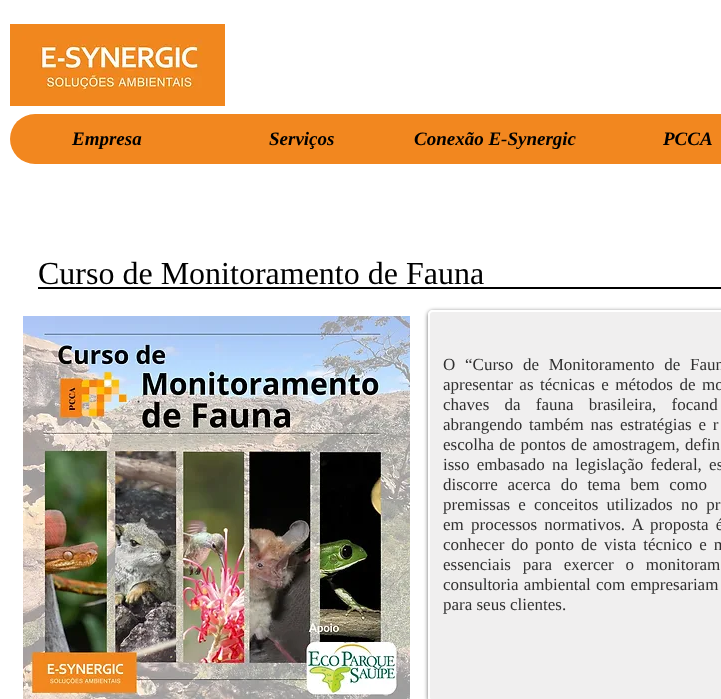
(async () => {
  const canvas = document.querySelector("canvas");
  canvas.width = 721;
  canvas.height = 699;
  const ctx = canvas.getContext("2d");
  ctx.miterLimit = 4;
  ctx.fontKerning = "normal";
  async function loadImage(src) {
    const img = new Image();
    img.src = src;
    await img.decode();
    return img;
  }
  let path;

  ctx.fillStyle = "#ffffff";
  ctx.fillRect(0, 0, 721, 699);
  ctx.drawImage(await loadImage("img/1.png"), 10, 24, 215, 82);
  ctx.fillStyle = "#f2871f";
  ctx.beginPath();
  ctx.roundRect(10, 114, 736, 50, 25);
  ctx.fill();
  ctx.fillStyle = "#000000";
  ctx.fillRect(38, 287, 683, 2);
  ctx.drawImage(await loadImage("img/2.png"), 23, 316, 387, 383);
  ctx.save();
  path = new Path2D("M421 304H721V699H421ZM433 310H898C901 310 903 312 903 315V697C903 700 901 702 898 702H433C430 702 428 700 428 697V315C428 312 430 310 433 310Z");
  ctx.clip(path, "evenodd");
  ctx.fillStyle = "rgba(0, 0, 0, 0.6)";
  ctx.filter = "blur(2px)";
  ctx.beginPath();
  ctx.roundRect(428, 311, 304, 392, 5);
  ctx.fill();
  ctx.filter = "none";
  ctx.restore();
  ctx.fillStyle = "rgba(227, 225, 225, 0.53)";
  ctx.beginPath();
  ctx.roundRect(429, 311, 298, 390, 4);
  ctx.fill();
  ctx.strokeStyle = "#ffffff";
  ctx.lineWidth = 2;
  ctx.stroke();
  ctx.font = "italic bold 19px Liberation Serif";
  ctx.fillStyle = "#000000";
  for (const [text, x, y] of [
    ["Empresa", 72, 145],
    ["Serviços", 269, 145],
    ["Conexão E-Synergic", 414, 145],
    ["PCCA", 663, 145],
  ]) {
    ctx.fillText(text, x, y);
  }
  ctx.font = "32px Liberation Serif";
  ctx.fillText("Curso de Monitoramento de Fauna", 38, 284);
  ctx.wordSpacing = "5.5px";
  ctx.font = "17px Liberation Serif";
  ctx.fillStyle = "#303030";
  ctx.fillText("O “Curso de Monitoramento de Faun", 443, 370);
  ctx.wordSpacing = "2.25px";
  ctx.fillText("apresentar as técnicas e métodos de mo", 443, 390);
  ctx.wordSpacing = "11px";
  ctx.fillText("chaves da fauna brasileira, focand", 443, 410);
  ctx.wordSpacing = "2.5px";
  ctx.fillText("abrangendo também nas estratégias e r", 443, 430);
  ctx.wordSpacing = "1px";
  ctx.fillText("escolha de pontos de amostragem, defin", 443, 450);
  ctx.wordSpacing = "3px";
  ctx.fillText("isso embasado na legislação federal, es", 443, 470);
  ctx.wordSpacing = "5.5px";
  ctx.fillText("discorre acerca do tema bem como", 443, 490);
  ctx.wordSpacing = "4px";
  ctx.fillText("premissas e conceitos utilizados no pr", 443, 510);
  ctx.wordSpacing = "3px";
  ctx.fillText("em processos normativos. A proposta é", 443, 530);
  ctx.wordSpacing = "2.75px";
  ctx.fillText("conhecer do ponto de vista técnico e m", 443, 550);
  ctx.wordSpacing = "7.5px";
  ctx.fillText("essenciais para exercer o monitoram", 443, 570);
  ctx.wordSpacing = "1px";
  ctx.fillText("consultoria ambiental com empresariam", 443, 590);
  ctx.wordSpacing = "0px";
  ctx.fillText("para seus clientes.", 443, 610);
})();
